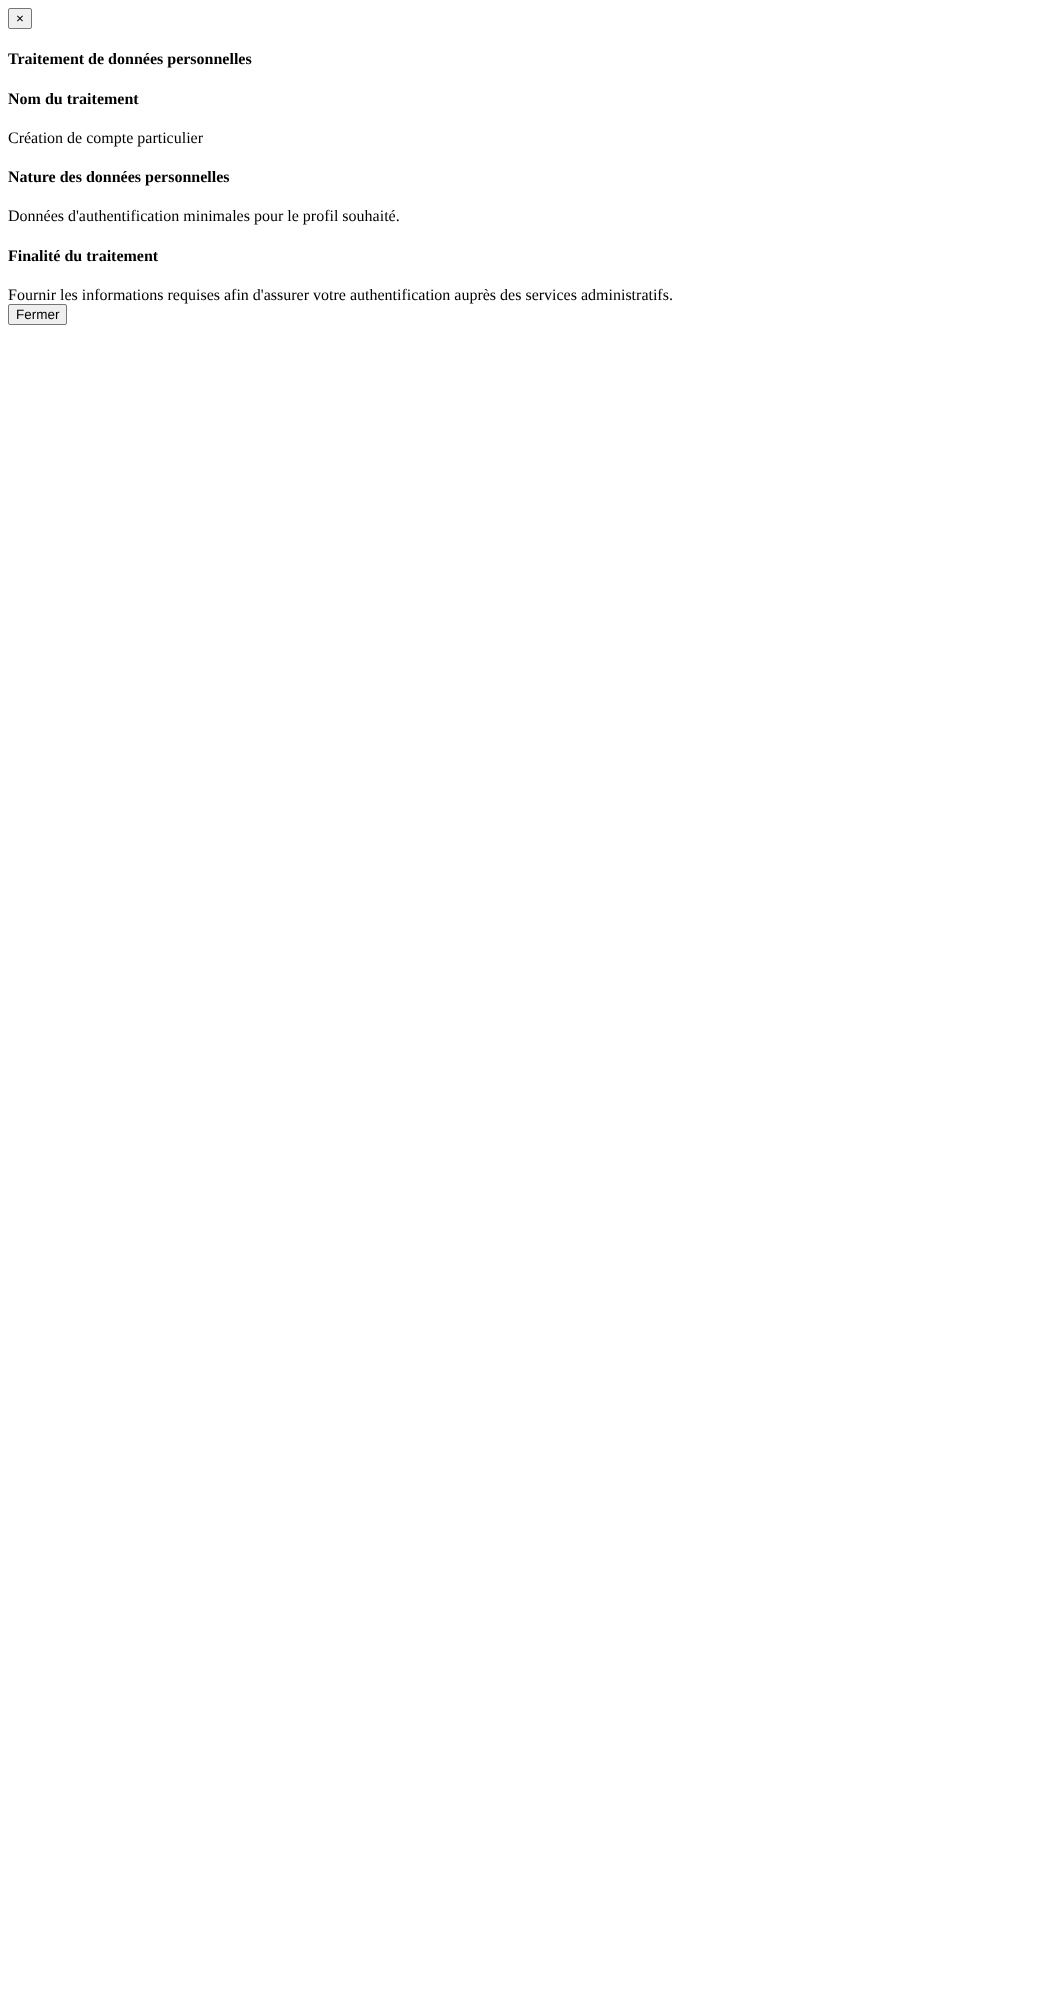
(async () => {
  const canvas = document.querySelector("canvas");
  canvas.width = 1049;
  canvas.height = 2015;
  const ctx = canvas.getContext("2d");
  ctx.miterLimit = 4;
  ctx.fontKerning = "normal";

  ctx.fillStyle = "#ffffff";
  ctx.fillRect(0, 0, 1049, 2015);
  ctx.fillStyle = "#efefef";
  ctx.beginPath();
  ctx.roundRect(8.5, 8.5, 23, 20, 1.5);
  ctx.fill();
  ctx.strokeStyle = "#767676";
  ctx.stroke();
  ctx.beginPath();
  ctx.roundRect(8.5, 304.5, 58, 20, 1.5);
  ctx.fill();
  ctx.stroke();
  ctx.font = "13.5px Liberation Sans";
  ctx.fillStyle = "#000000";
  ctx.fillText("×", 16, 23);
  ctx.font = "bold 16px Liberation Serif";
  ctx.fillText("Traitement de données personnelles", 8, 64);
  ctx.fillText("Nom du traitement", 8, 104);
  ctx.font = "16px Liberation Serif";
  ctx.fillText("Création de compte particulier", 8, 143);
  ctx.font = "bold 16px Liberation Serif";
  ctx.fillText("Nature des données personnelles", 8, 182);
  ctx.font = "16px Liberation Serif";
  ctx.fillText("Données d'authentification minimales pour le profil souhaité.", 8, 221);
  ctx.font = "bold 16px Liberation Serif";
  ctx.fillText("Finalité du traitement", 8, 261);
  ctx.font = "16px Liberation Serif";
  ctx.fillText("Fournir les informations requises afin d'assurer votre authentification auprès des services administratifs.", 8, 300);
  ctx.font = "13.5px Liberation Sans";
  ctx.fillText("Fermer", 16, 319);
})();
